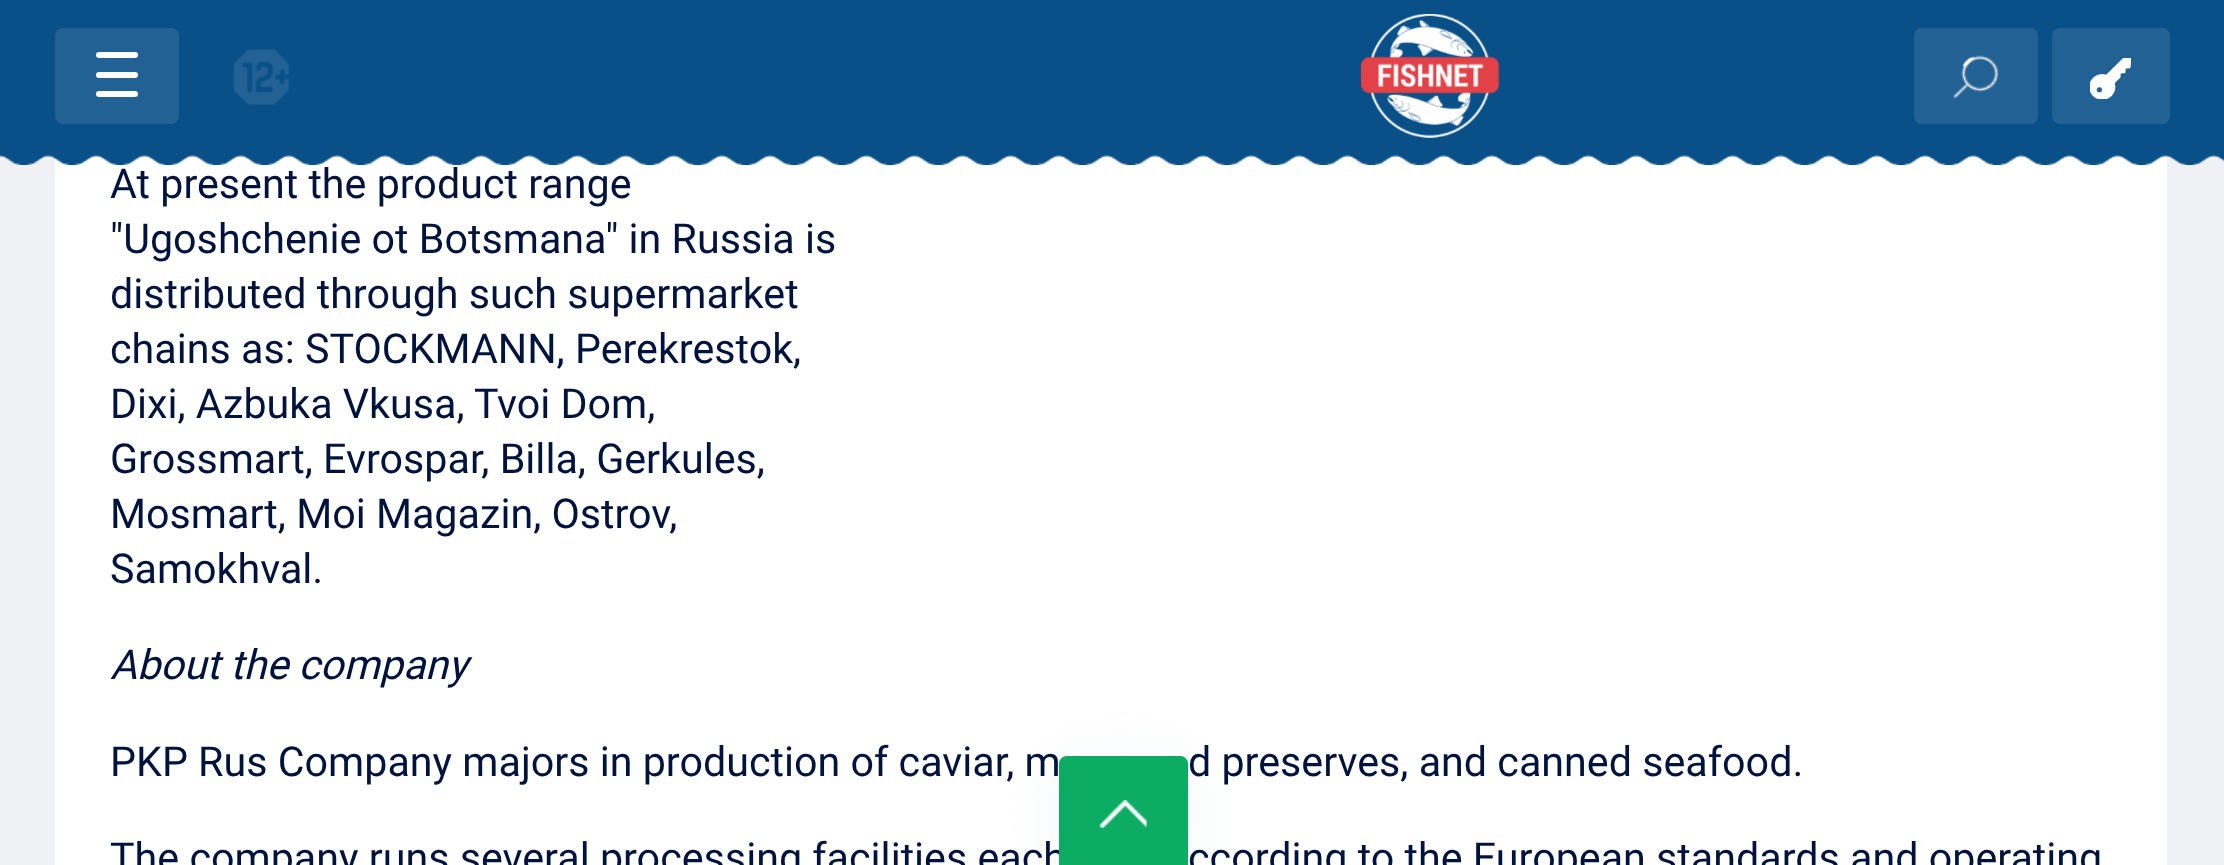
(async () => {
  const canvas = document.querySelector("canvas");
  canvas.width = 2224;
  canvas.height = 865;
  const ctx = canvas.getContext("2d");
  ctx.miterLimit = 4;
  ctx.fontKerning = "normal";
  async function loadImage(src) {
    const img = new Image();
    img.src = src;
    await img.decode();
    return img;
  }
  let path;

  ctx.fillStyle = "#eff1f5";
  ctx.fillRect(0, 0, 2224, 865);
  ctx.fillStyle = "#0a5088";
  ctx.fillRect(0, 0, 2224, 151);
  ctx.fillStyle = "#226194";
  ctx.beginPath();
  ctx.roundRect(55, 28, 124, 96, 8);
  ctx.fill();
  ctx.fillStyle = "#ffffff";
  ctx.beginPath();
  ctx.roundRect(96, 52, 42, 6, 3);
  ctx.fill();
  ctx.beginPath();
  ctx.roundRect(96, 72, 42, 6, 3);
  ctx.fill();
  ctx.beginPath();
  ctx.roundRect(96, 91, 42, 6, 3);
  ctx.fill();
  ctx.drawImage(await loadImage("img/1.png"), 233, 49, 56, 56);
  ctx.drawImage(await loadImage("img/2.png"), 1361, 14, 139, 124);
  ctx.fillStyle = "#226194";
  ctx.beginPath();
  ctx.roundRect(1914, 28, 124, 96, 8);
  ctx.fill();
  ctx.drawImage(await loadImage("img/3.png"), 1953, 55, 46, 44);
  ctx.beginPath();
  ctx.roundRect(2052, 28, 118, 96, 8);
  ctx.fill();
  ctx.drawImage(await loadImage("img/4.png"), 2090, 58, 41, 41);
  ctx.fillStyle = "#ffffff";
  ctx.fillRect(55, 155, 2112, 710);
  ctx.drawImage(await loadImage("img/5.png"), 0, 151, 2224, 14);
  ctx.fillStyle = "#f3f6f9";
  ctx.filter = "blur(27.5px)";
  ctx.beginPath();
  ctx.roundRect(1059, 759, 129, 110, 8);
  ctx.fill();
  ctx.filter = "none";
  ctx.font = "41.25px Roboto";
  ctx.fillStyle = "#00133d";
  for (const [text, x, y] of [
    ["At present the product range", 110, 198],
    ["\"Ugoshchenie ot Botsmana\" in Russia is", 110, 253],
    ["distributed through such supermarket", 110, 308],
    ["chains as: STOCKMANN, Perekrestok,", 110, 363],
    ["Dixi, Azbuka Vkusa, Tvoi Dom,", 110, 418],
    ["Grossmart, Evrospar, Billa, Gerkules,", 110, 473],
    ["Mosmart, Moi Magazin, Ostrov,", 110, 528],
    ["Samokhval.", 110, 583],
  ]) {
    ctx.fillText(text, x, y);
  }
  ctx.font = "italic 41.25px Roboto";
  ctx.fillText("About the company", 110, 679);
  ctx.font = "41.25px Roboto";
  for (const [text, x, y] of [
    ["PKP Rus Company majors in production of caviar, m", 110, 776],
    ["d preserves, and canned seafood.", 1188, 776],
    ["The company runs several processing facilities each", 110, 872],
    ["ccording to the European standards and operating", 1188, 872],
  ]) {
    ctx.fillText(text, x, y);
  }
  ctx.fillStyle = "#0cac63";
  path = new Path2D("M1067 756H1180C1184.5 756 1188 759.5 1188 764V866H1059V764C1059 759.5 1062.5 756 1067 756Z");
  ctx.fill(path);
  ctx.drawImage(await loadImage("img/6.png"), 1098, 800, 49, 28);
})();
